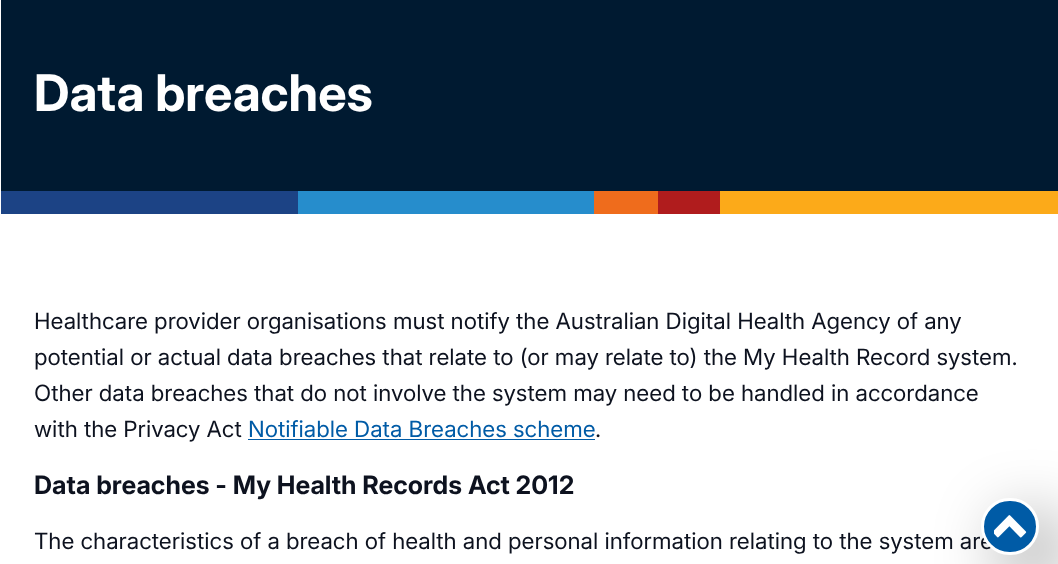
(async () => {
  const canvas = document.querySelector("canvas");
  canvas.width = 1058;
  canvas.height = 564;
  const ctx = canvas.getContext("2d");
  ctx.miterLimit = 4;
  ctx.fontKerning = "normal";
  async function loadImage(src) {
    const img = new Image();
    img.src = src;
    await img.decode();
    return img;
  }

  ctx.fillStyle = "#ffffff";
  ctx.fillRect(0, 0, 1058, 564);
  for (const [x, y, w, h, color] of [
    [1, 0, 1057, 191, "#001a31"],
    [1, 191, 297, 23, "#1c4385"],
    [298, 191, 296, 23, "#268dcc"],
    [594, 191, 64, 23, "#ef6c1c"],
    [658, 191, 62, 23, "#b01c1d"],
    [720, 191, 338, 23, "#fcaa19"],
    [248, 439, 347, 1, "#005ba6"],
  ]) {
    ctx.fillStyle = color;
    ctx.fillRect(x, y, w, h);
  }
  ctx.fillStyle = "rgba(0, 0, 0, 0.5)";
  ctx.filter = "blur(34px)";
  ctx.beginPath();
  ctx.roundRect(1004, 520, 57, 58, 28.5);
  ctx.fill();
  ctx.filter = "none";
  ctx.font = "bold 50.5px 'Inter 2'";
  ctx.fillStyle = "#ffffff";
  ctx.fillText("Data breaches", 34, 111);
  ctx.font = "22.5px Inter";
  ctx.fillStyle = "#0d121f";
  for (const [text, x, y] of [
    ["Healthcare provider organisations must notify the Australian Digital Health Agency of any", 34, 329],
    ["potential or actual data breaches that relate to (or may relate to) the My Health Record system.", 34, 365],
    ["Other data breaches that do not involve the system may need to be handled in accordance", 34, 401],
    ["with the Privacy Act", 34, 437],
  ]) {
    ctx.fillText(text, x, y);
  }
  ctx.fillStyle = "#005ba6";
  ctx.fillText("Notifiable Data Breaches scheme", 248, 437);
  ctx.fillStyle = "#0d121f";
  ctx.fillText(".", 595, 437);
  ctx.font = "bold 25.3px Inter";
  ctx.fillText("Data breaches - My Health Records Act 2012", 34, 494);
  ctx.font = "22.5px Inter";
  ctx.fillText("The characteristics of a breach of health and personal information relating to the system are", 34, 549);
  ctx.fillStyle = "#005ba6";
  ctx.beginPath();
  ctx.roundRect(982.5, 499.5, 55, 54, 27);
  ctx.fill();
  ctx.strokeStyle = "#ffffff";
  ctx.lineWidth = 3;
  ctx.stroke();
  ctx.drawImage(await loadImage("img/1.png"), 994, 515, 33, 23);
})();
